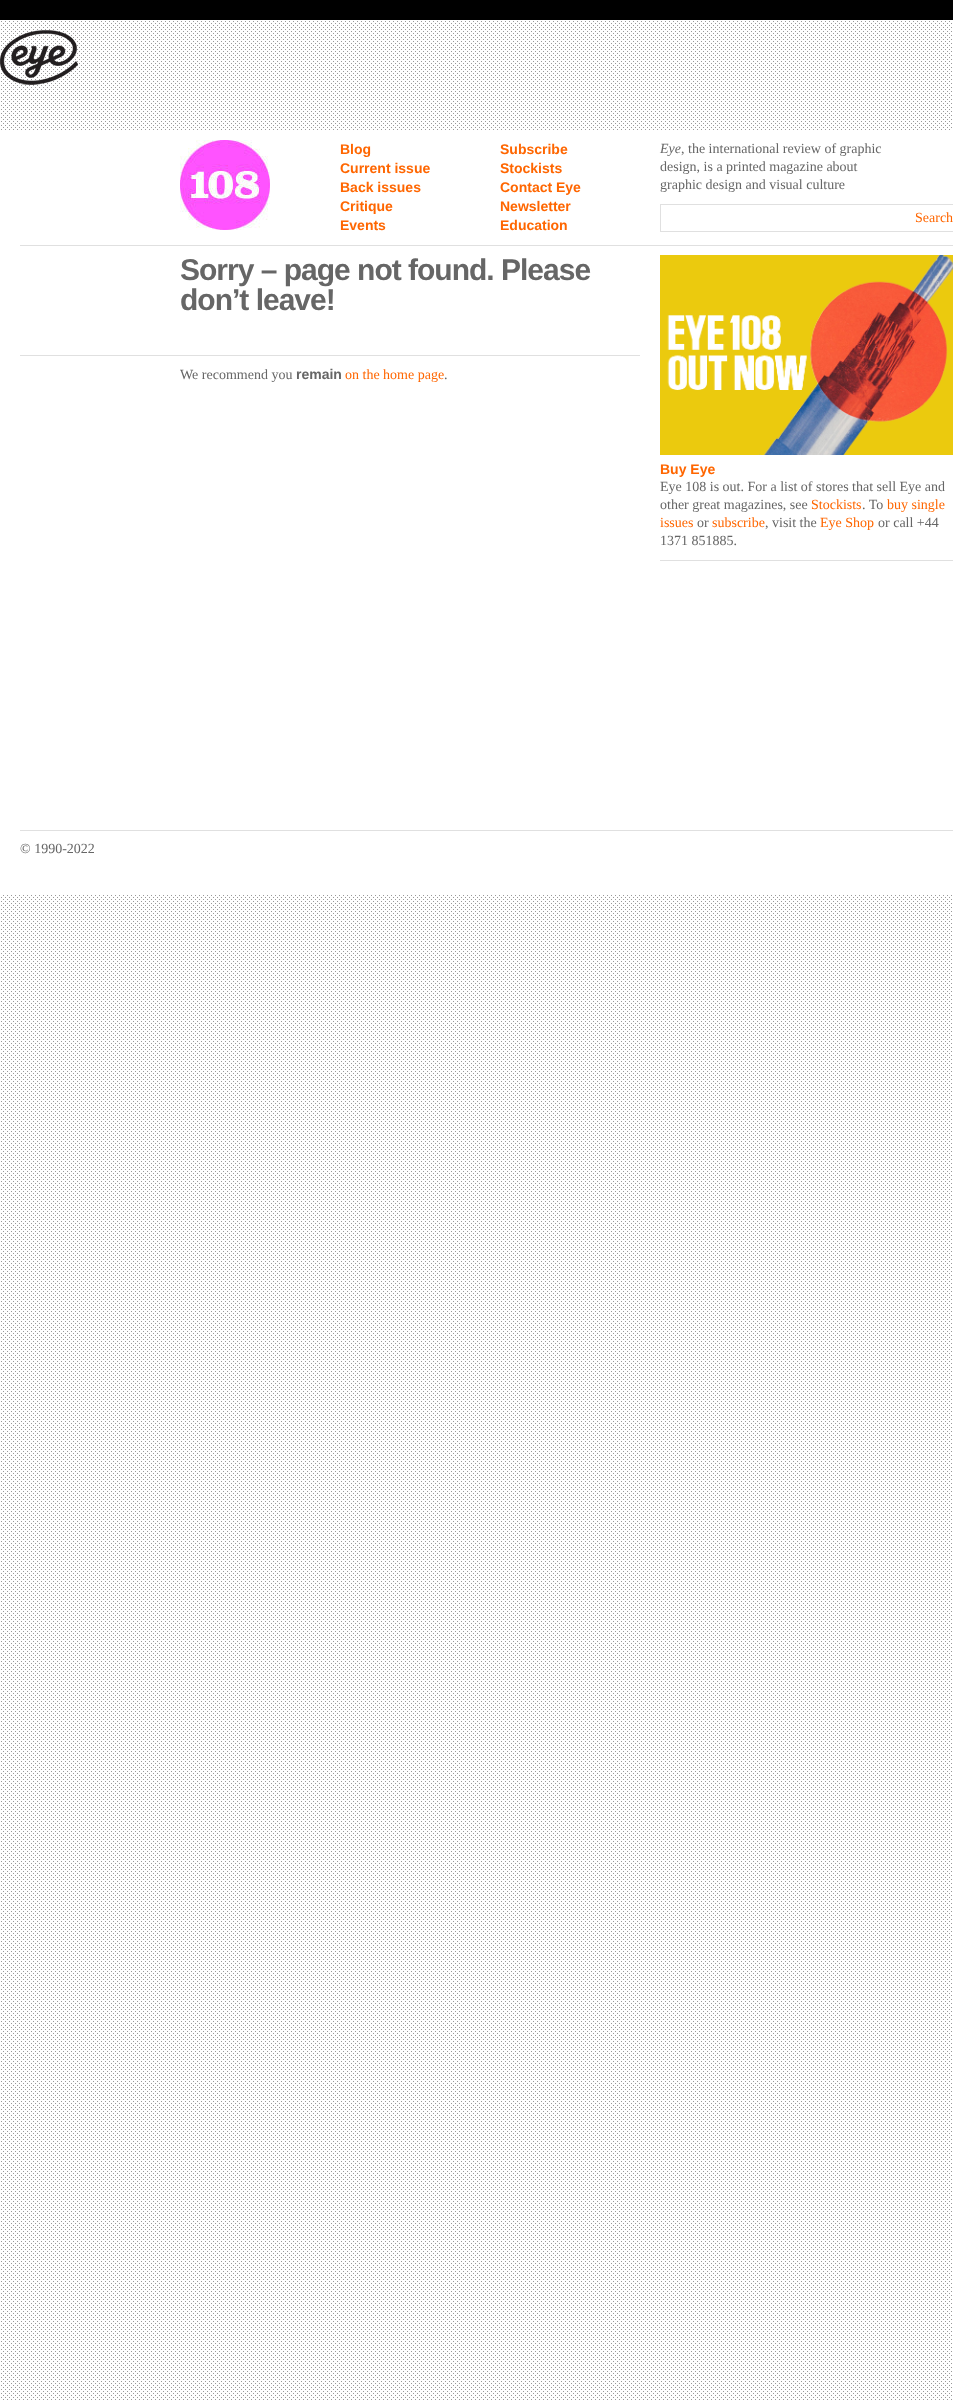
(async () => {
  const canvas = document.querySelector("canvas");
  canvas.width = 953;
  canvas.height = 2401;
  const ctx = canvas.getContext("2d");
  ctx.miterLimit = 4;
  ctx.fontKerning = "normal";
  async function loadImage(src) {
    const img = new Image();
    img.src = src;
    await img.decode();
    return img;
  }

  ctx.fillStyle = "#ffffff";
  ctx.fillRect(0, 0, 953, 2401);
  ctx.drawImage(await loadImage("img/1.png"), 1, 20, 951, 2380);
  ctx.fillStyle = "#000000";
  ctx.fillRect(0, 0, 953, 20);
  ctx.drawImage(await loadImage("img/2.png"), 0, 30, 78, 55);
  ctx.fillStyle = "#ffffff";
  ctx.fillRect(1, 131, 951, 113);
  ctx.drawImage(await loadImage("img/3.png"), 180, 140, 90, 90);
  ctx.strokeStyle = "#e0e0e0";
  ctx.strokeRect(660.5, 204.5, 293, 27);
  for (const [x, y, w, h, color] of [
    [1, 245, 951, 649, "#ffffff"],
    [20, 245, 933, 1, "#e0e0e0"],
    [20, 355, 620, 1, "#e0e0e0"],
  ]) {
    ctx.fillStyle = color;
    ctx.fillRect(x, y, w, h);
  }
  ctx.drawImage(await loadImage("img/4.png"), 660, 255, 293, 200);
  ctx.fillRect(660, 560, 293, 1);
  ctx.fillRect(20, 830, 933, 1);
  ctx.font = "bold 14px Liberation Sans";
  ctx.fillStyle = "#ff6600";
  for (const [text, x, y] of [
    ["Blog", 340, 154],
    ["Subscribe", 500, 154],
    ["Current issue", 340, 173],
    ["Stockists", 500, 173],
    ["Back issues", 340, 192],
    ["Contact Eye", 500, 192],
    ["Critique", 340, 211],
    ["Newsletter", 500, 211],
    ["Events", 340, 230],
    ["Education", 500, 230],
  ]) {
    ctx.fillText(text, x, y);
  }
  ctx.font = "italic 14px Liberation Serif";
  ctx.fillStyle = "#666666";
  ctx.fillText("Eye", 660, 153);
  ctx.font = "14px Liberation Serif";
  for (const [text, x, y] of [
    [", the international review of graphic", 681, 153],
    ["design, is a printed magazine about", 660, 171],
    ["graphic design and visual culture", 660, 189],
  ]) {
    ctx.fillText(text, x, y);
  }
  ctx.fillStyle = "#ff6600";
  ctx.fillText("Search", 915, 222);
  ctx.letterSpacing = "-1px";
  ctx.font = "bold 30px Liberation Sans";
  ctx.fillStyle = "#666666";
  ctx.fillText("Sorry – page not found. Please", 180, 280);
  ctx.fillText("don’t leave!", 180, 310);
  ctx.letterSpacing = "0px";
  ctx.font = "14px Liberation Serif";
  ctx.fillText("We recommend you", 180, 379);
  ctx.font = "bold 14px Liberation Sans";
  ctx.fillText("remain", 296, 379);
  ctx.font = "14px Liberation Serif";
  ctx.fillStyle = "#ff6600";
  ctx.fillText("on the home page", 345, 379);
  ctx.fillStyle = "#666666";
  ctx.fillText(".", 444, 379);
  ctx.font = "bold 14px Liberation Sans";
  ctx.fillStyle = "#ff6600";
  ctx.fillText("Buy Eye", 660, 474);
  ctx.font = "14px Liberation Serif";
  ctx.fillStyle = "#666666";
  ctx.fillText("Eye 108 is out. For a list of stores that sell Eye and", 660, 491);
  ctx.fillText("other great magazines, see", 660, 509);
  ctx.fillStyle = "#ff6600";
  ctx.fillText("Stockists", 811, 509);
  ctx.fillStyle = "#666666";
  ctx.fillText(". To", 862, 509);
  ctx.fillStyle = "#ff6600";
  ctx.fillText("buy single", 887, 509);
  ctx.fillText("issues", 660, 527);
  ctx.fillStyle = "#666666";
  ctx.fillText("or", 697, 527);
  ctx.fillStyle = "#ff6600";
  ctx.fillText("subscribe", 712, 527);
  ctx.fillStyle = "#666666";
  ctx.fillText(", visit the", 765, 527);
  ctx.fillStyle = "#ff6600";
  ctx.fillText("Eye Shop", 820, 527);
  ctx.fillStyle = "#666666";
  for (const [text, x, y] of [
    ["or call +44", 878, 527],
    ["1371 851885.", 660, 545],
    ["© 1990-2022", 20, 853],
  ]) {
    ctx.fillText(text, x, y);
  }
})();
